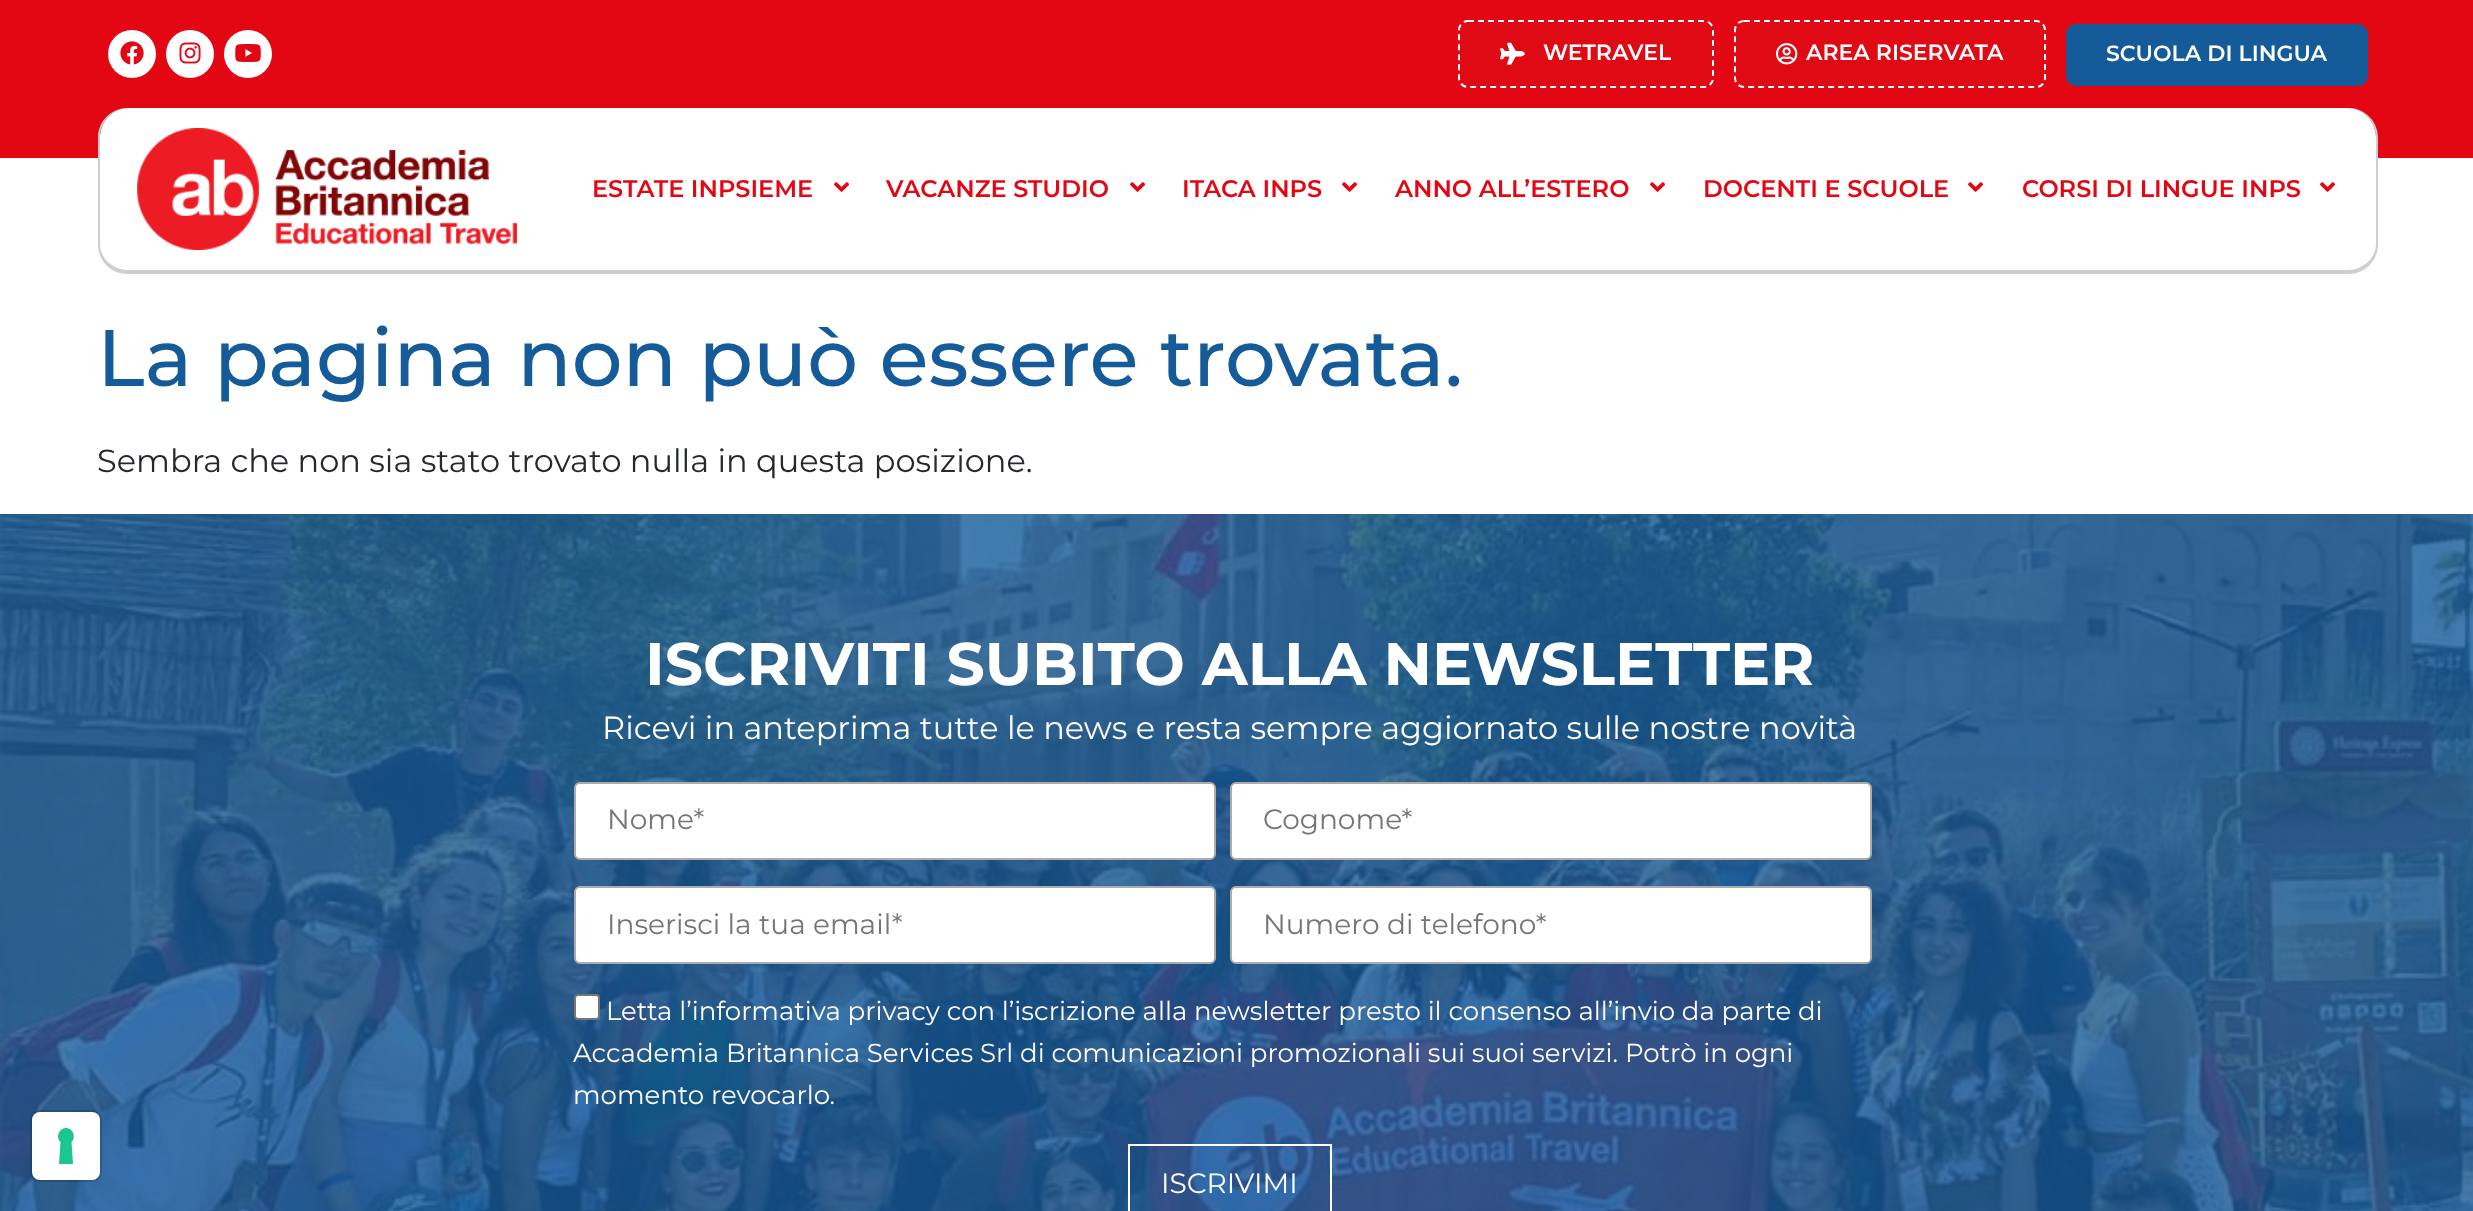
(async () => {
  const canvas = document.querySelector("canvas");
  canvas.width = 2473;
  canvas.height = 1211;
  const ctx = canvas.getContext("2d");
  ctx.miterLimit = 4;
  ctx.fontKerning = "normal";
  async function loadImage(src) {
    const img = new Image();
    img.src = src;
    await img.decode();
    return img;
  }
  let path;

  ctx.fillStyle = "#ffffff";
  ctx.fillRect(0, 0, 2473, 1211);
  ctx.fillStyle = "#e30613";
  ctx.fillRect(0, 0, 2473, 158);
  ctx.fillStyle = "#ffffff";
  ctx.beginPath();
  ctx.arc(132, 54, 24, 0, Math.PI * 2);
  ctx.fill();
  ctx.drawImage(await loadImage("img/1.png"), 120, 41, 24, 24);
  ctx.beginPath();
  ctx.arc(190, 54, 24, 0, Math.PI * 2);
  ctx.fill();
  ctx.drawImage(await loadImage("img/2.png"), 179, 42, 22, 22);
  ctx.beginPath();
  ctx.arc(248, 54, 24, 0, Math.PI * 2);
  ctx.fill();
  ctx.drawImage(await loadImage("img/3.png"), 235, 44, 26, 18);
  ctx.fillStyle = "#e00a15";
  ctx.beginPath();
  ctx.roundRect(1458, 20, 256, 68, 10);
  ctx.fill();
  path = new Path2D("M1468 21H1704C1709 21 1713 25 1713 30V78C1713 83 1709 87 1704 87H1468C1463 87 1459 83 1459 78V30C1459 25 1463 21 1468 21Z");
  ctx.strokeStyle = "#ffffff";
  ctx.lineWidth = 2;
  ctx.setLineDash([6, 4]);
  ctx.stroke(path);
  ctx.drawImage(await loadImage("img/4.png"), 1500, 42, 25, 23);
  ctx.beginPath();
  ctx.roundRect(1734, 20, 312, 68, 10);
  ctx.fill();
  path = new Path2D("M1744 21H2036C2041 21 2045 25 2045 30V78C2045 83 2041 87 2036 87H1744C1739 87 1735 83 1735 78V30C1735 25 1739 21 1744 21Z");
  ctx.stroke(path);
  ctx.drawImage(await loadImage("img/5.png"), 1776, 43, 22, 22);
  ctx.fillStyle = "#155b99";
  ctx.beginPath();
  ctx.roundRect(2066, 24, 302, 62, 10);
  ctx.fill();
  ctx.fillStyle = "#ffffff";
  path = new Path2D("M128 108H554V270H128C113 270 100 258 100 244V138C100 121 113 108 128 108Z");
  ctx.fill(path);
  ctx.fillStyle = "#cecece";
  path = new Path2D("M128 108H554V274H128C111 274 98 261 98 244V138C98 121 111 108 128 108ZM128 108H554V270H128C113 270 100 258 100 244V138C100 121 113 108 128 108Z");
  ctx.fill(path, "evenodd");
  ctx.drawImage(await loadImage("img/6.png"), 137, 128, 381, 122);
  ctx.fillStyle = "#ffffff";
  path = new Path2D("M554 108H2348C2363 108 2376 121 2376 138V244C2376 258 2363 270 2348 270H554Z");
  ctx.fill(path);
  ctx.fillStyle = "#cecece";
  path = new Path2D("M554 108H2348C2365 108 2378 121 2378 138V244C2378 261 2365 274 2348 274H554ZM554 108H2348C2363 108 2376 121 2376 138V244C2376 258 2363 270 2348 270H554Z");
  ctx.fill(path, "evenodd");
  ctx.drawImage(await loadImage("img/7.png"), 834, 182, 15, 10);
  ctx.drawImage(await loadImage("img/7.png"), 1130, 182, 15, 10);
  ctx.drawImage(await loadImage("img/7.png"), 1342, 182, 15, 10);
  ctx.drawImage(await loadImage("img/7.png"), 1650, 182, 15, 10);
  ctx.drawImage(await loadImage("img/7.png"), 1968, 182, 15, 10);
  ctx.drawImage(await loadImage("img/7.png"), 2320, 182, 15, 10);
  ctx.drawImage(await loadImage("img/8.png"), 0, 514, 2473, 697);
  ctx.beginPath();
  ctx.roundRect(31, 1111, 70, 70, 9);
  ctx.strokeStyle = "rgba(0, 0, 0, 0.15)";
  ctx.setLineDash([]);
  ctx.stroke();
  ctx.fillStyle = "#ffffff";
  ctx.beginPath();
  ctx.roundRect(32, 1112, 68, 68, 8);
  ctx.fill();
  ctx.fillStyle = "#1cc691";
  path = new Path2D("M66 1128C73 1128 76.5 1137.5 71.5 1142L73 1164H59L60.5 1142C55.5 1137.5 59 1128 66 1128Z");
  ctx.fill(path, "evenodd");
  ctx.fillStyle = "#ffffff";
  ctx.beginPath();
  ctx.roundRect(575, 783, 640, 76, 5);
  ctx.fill();
  ctx.strokeStyle = "#acacac";
  ctx.stroke();
  ctx.beginPath();
  ctx.roundRect(1231, 783, 640, 76, 5);
  ctx.fill();
  ctx.stroke();
  ctx.beginPath();
  ctx.roundRect(575, 887, 640, 76, 5);
  ctx.fill();
  ctx.stroke();
  ctx.beginPath();
  ctx.roundRect(1231, 887, 640, 76, 5);
  ctx.fill();
  ctx.stroke();
  ctx.beginPath();
  ctx.roundRect(575, 995, 24, 24, 3);
  ctx.fill();
  ctx.strokeStyle = "#767676";
  ctx.stroke();
  ctx.strokeStyle = "#ffffff";
  ctx.strokeRect(1129, 1145, 202, 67);
  ctx.font = "600 22px Montserrat";
  for (const [text, x, y] of [
    ["WETRAVEL", 1543, 60],
    ["AREA RISERVATA", 1806, 60],
    ["SCUOLA DI LINGUA", 2106, 61],
  ]) {
    ctx.fillText(text, x, y);
  }
  ctx.font = "600 24px Montserrat";
  ctx.fillStyle = "#e30613";
  for (const [text, x, y] of [
    ["ESTATE INPSIEME", 592, 197],
    ["VACANZE STUDIO", 886, 197],
    ["ITACA INPS", 1182, 197],
    ["ANNO ALL’ESTERO", 1395, 197],
    ["DOCENTI E SCUOLE", 1703, 197],
    ["CORSI DI LINGUE INPS", 2022, 197],
  ]) {
    ctx.fillText(text, x, y);
  }
  ctx.font = "500 80px Montserrat";
  ctx.fillStyle = "#155b99";
  ctx.fillText("La pagina non può essere trovata.", 97, 386);
  ctx.font = "32px Montserrat";
  ctx.fillStyle = "#25292f";
  ctx.fillText("Sembra che non sia stato trovato nulla in questa posizione.", 97, 472);
  ctx.font = "bold 60px Montserrat";
  ctx.fillStyle = "#ffffff";
  ctx.fillText("ISCRIVITI SUBITO ALLA NEWSLETTER", 645, 685);
  ctx.font = "32px Montserrat";
  ctx.fillText("Ricevi in anteprima tutte le news e resta sempre aggiornato sulle nostre novità", 602, 739);
  ctx.font = "28px Montserrat";
  ctx.fillStyle = "#757575";
  for (const [text, x, y] of [
    ["Nome*", 607, 829],
    ["Cognome*", 1263, 829],
    ["Inserisci la tua email*", 607, 934],
    ["Numero di telefono*", 1263, 934],
  ]) {
    ctx.fillText(text, x, y);
  }
  ctx.font = "26px Montserrat";
  ctx.fillStyle = "#ffffff";
  for (const [text, x, y] of [
    ["Letta l’informativa privacy con l’iscrizione alla newsletter presto il consenso all’invio da parte di", 606, 1020],
    ["Accademia Britannica Services Srl di comunicazioni promozionali sui suoi servizi. Potrò in ogni", 573, 1062],
    ["momento revocarlo.", 573, 1104],
  ]) {
    ctx.fillText(text, x, y);
  }
  ctx.font = "28px Montserrat";
  ctx.fillText("ISCRIVIMI", 1161, 1193);
})();
